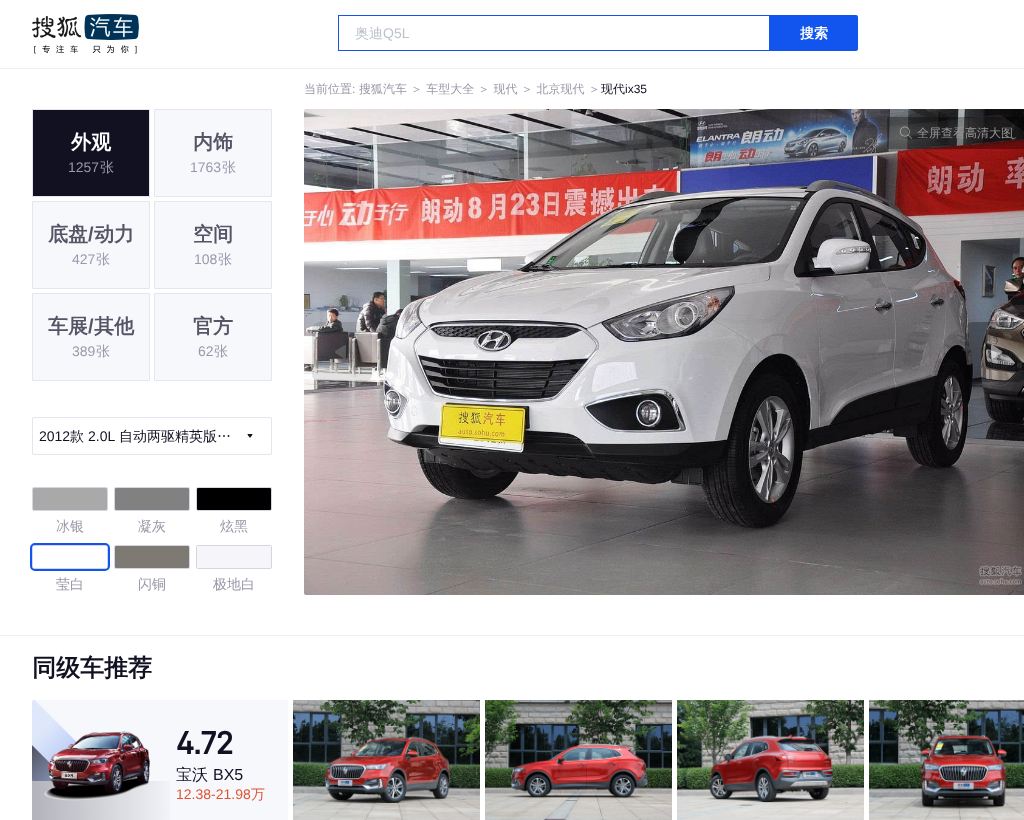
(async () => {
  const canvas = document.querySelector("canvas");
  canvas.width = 1024;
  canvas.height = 820;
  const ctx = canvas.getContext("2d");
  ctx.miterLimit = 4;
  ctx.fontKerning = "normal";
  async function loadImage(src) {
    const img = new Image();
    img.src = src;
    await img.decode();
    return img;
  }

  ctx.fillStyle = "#ffffff";
  ctx.fillRect(0, 0, 1024, 820);
  ctx.fillStyle = "#eeeef0";
  ctx.fillRect(0, 68, 1024, 1);
  ctx.drawImage(await loadImage("img/1.png"), 32, 14, 107, 40);
  ctx.strokeStyle = "#1155ee";
  ctx.strokeRect(338.5, 15.5, 431, 35);
  ctx.fillStyle = "#1155ee";
  ctx.beginPath();
  ctx.roundRect(770, 15, 88, 36, [0, 2, 2, 0]);
  ctx.fill();
  ctx.fillStyle = "#111122";
  ctx.beginPath();
  ctx.rect(32.5, 109.5, 117, 87);
  ctx.fill();
  ctx.strokeStyle = "#e5e5ee";
  ctx.stroke();
  ctx.fillStyle = "#f7f8fc";
  ctx.beginPath();
  ctx.rect(154.5, 109.5, 117, 87);
  ctx.fill();
  ctx.stroke();
  ctx.beginPath();
  ctx.rect(32.5, 201.5, 117, 87);
  ctx.fill();
  ctx.stroke();
  ctx.beginPath();
  ctx.rect(154.5, 201.5, 117, 87);
  ctx.fill();
  ctx.stroke();
  ctx.beginPath();
  ctx.rect(32.5, 293.5, 117, 87);
  ctx.fill();
  ctx.stroke();
  ctx.beginPath();
  ctx.rect(154.5, 293.5, 117, 87);
  ctx.fill();
  ctx.stroke();
  ctx.beginPath();
  ctx.roundRect(32.5, 417.5, 239, 37, 1.5);
  ctx.stroke();
  ctx.drawImage(await loadImage("img/2.png"), 247, 434, 6, 4);
  ctx.beginPath();
  ctx.roundRect(32.5, 487.5, 75, 23, 1.5);
  ctx.strokeStyle = "#d5d5e2";
  ctx.stroke();
  ctx.fillStyle = "#a9a9a9";
  ctx.beginPath();
  ctx.roundRect(33, 488, 74, 22, 1);
  ctx.fill();
  ctx.beginPath();
  ctx.roundRect(114.5, 487.5, 75, 23, 1.5);
  ctx.stroke();
  ctx.fillStyle = "#818181";
  ctx.beginPath();
  ctx.roundRect(115, 488, 74, 22, 1);
  ctx.fill();
  ctx.beginPath();
  ctx.roundRect(196.5, 487.5, 75, 23, 1.5);
  ctx.stroke();
  ctx.fillStyle = "#000000";
  ctx.beginPath();
  ctx.roundRect(197, 488, 74, 22, 1);
  ctx.fill();
  ctx.beginPath();
  ctx.roundRect(32.5, 545.5, 75, 23, 1.5);
  ctx.stroke();
  ctx.fillStyle = "#ffffff";
  ctx.beginPath();
  ctx.roundRect(33, 546, 74, 22, 1);
  ctx.fill();
  ctx.beginPath();
  ctx.roundRect(31, 544, 78, 26, 4);
  ctx.strokeStyle = "#1155ee";
  ctx.lineWidth = 2;
  ctx.stroke();
  ctx.beginPath();
  ctx.roundRect(114.5, 545.5, 75, 23, 1.5);
  ctx.strokeStyle = "#d5d5e2";
  ctx.lineWidth = 1;
  ctx.stroke();
  ctx.fillStyle = "#7e7972";
  ctx.beginPath();
  ctx.roundRect(115, 546, 74, 22, 1);
  ctx.fill();
  ctx.beginPath();
  ctx.roundRect(196.5, 545.5, 75, 23, 1.5);
  ctx.stroke();
  ctx.fillStyle = "#f5f5fa";
  ctx.beginPath();
  ctx.roundRect(197, 546, 74, 22, 1);
  ctx.fill();
  ctx.drawImage(await loadImage("img/3.png"), 304, 109, 720, 486);
  ctx.fillStyle = "rgba(0, 0, 0, 0.3)";
  ctx.beginPath();
  ctx.roundRect(887, 117, 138, 32, 2);
  ctx.fill();
  ctx.drawImage(await loadImage("img/4.png"), 899, 126, 13, 13);
  ctx.fillStyle = "rgba(0, 0, 0, 0.1)";
  ctx.beginPath();
  ctx.roundRect(312, 322, 60, 60, 8);
  ctx.fill();
  ctx.drawImage(await loadImage("img/5.png"), 335, 345, 11, 14);
  ctx.fillStyle = "rgba(0, 0, 0, 0.3)";
  ctx.beginPath();
  ctx.roundRect(965, 322, 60, 60, 8);
  ctx.fill();
  ctx.drawImage(await loadImage("img/6.png"), 991, 345, 12, 14);
  ctx.fillStyle = "#eeeef0";
  ctx.fillRect(0, 635, 1024, 1);
  ctx.fillStyle = "#f7f8fc";
  ctx.fillRect(32, 700, 256, 120);
  ctx.drawImage(await loadImage("img/7.png"), 32, 700, 138, 120);
  ctx.drawImage(await loadImage("img/8.png"), 44, 731, 106, 70);
  ctx.drawImage(await loadImage("img/9.png"), 293, 700, 187, 120);
  ctx.drawImage(await loadImage("img/10.png"), 485, 700, 187, 120);
  ctx.drawImage(await loadImage("img/11.png"), 677, 700, 187, 120);
  ctx.drawImage(await loadImage("img/12.png"), 869, 700, 155, 120);
  ctx.font = "500 14px WenQuanYi Zen Hei";
  ctx.fillStyle = "#bbc2cc";
  ctx.fillText("奥迪", 355, 38);
  ctx.font = "14px Liberation Sans";
  ctx.fillText("Q5L", 383, 38);
  ctx.font = "bold 14px WenQuanYi Zen Hei";
  ctx.fillStyle = "#ffffff";
  ctx.fillText("搜索", 800, 38);
  ctx.font = "500 12px WenQuanYi Zen Hei";
  ctx.fillStyle = "#9999aa";
  ctx.fillText("当前位置", 304, 93);
  ctx.font = "12px Liberation Sans";
  ctx.fillText(":", 352, 93);
  ctx.font = "500 12px WenQuanYi Zen Hei";
  ctx.fillText("搜狐汽车 ＞ 车型大全 ＞ 现代 ＞ 北京现代 ＞", 359, 93);
  ctx.fillStyle = "#111122";
  ctx.fillText("现代", 601, 93);
  ctx.font = "12px Liberation Sans";
  ctx.fillText("ix35", 625, 93);
  ctx.font = "bold 20px WenQuanYi Zen Hei";
  ctx.fillStyle = "#ffffff";
  ctx.fillText("外观", 71, 149);
  ctx.font = "14px Liberation Sans";
  ctx.fillStyle = "#9999aa";
  ctx.fillText("1257", 68, 172);
  ctx.font = "500 14px WenQuanYi Zen Hei";
  ctx.fillText("张", 100, 172);
  ctx.font = "bold 20px WenQuanYi Zen Hei";
  ctx.fillStyle = "#555566";
  ctx.fillText("内饰", 193, 149);
  ctx.font = "14px Liberation Sans";
  ctx.fillStyle = "#9999aa";
  ctx.fillText("1763", 190, 172);
  ctx.font = "500 14px WenQuanYi Zen Hei";
  ctx.fillText("张", 222, 172);
  ctx.font = "bold 20px WenQuanYi Zen Hei";
  ctx.fillStyle = "#555566";
  ctx.fillText("底盘", 48, 241);
  ctx.font = "bold 20px Liberation Sans";
  ctx.fillText("/", 88, 241);
  ctx.font = "bold 20px WenQuanYi Zen Hei";
  ctx.fillText("动力", 94, 241);
  ctx.font = "14px Liberation Sans";
  ctx.fillStyle = "#9999aa";
  ctx.fillText("427", 72, 264);
  ctx.font = "500 14px WenQuanYi Zen Hei";
  ctx.fillText("张", 96, 264);
  ctx.font = "bold 20px WenQuanYi Zen Hei";
  ctx.fillStyle = "#555566";
  ctx.fillText("空间", 193, 241);
  ctx.font = "14px Liberation Sans";
  ctx.fillStyle = "#9999aa";
  ctx.fillText("108", 194, 264);
  ctx.font = "500 14px WenQuanYi Zen Hei";
  ctx.fillText("张", 218, 264);
  ctx.font = "bold 20px WenQuanYi Zen Hei";
  ctx.fillStyle = "#555566";
  ctx.fillText("车展", 48, 333);
  ctx.font = "bold 20px Liberation Sans";
  ctx.fillText("/", 88, 333);
  ctx.font = "bold 20px WenQuanYi Zen Hei";
  ctx.fillText("其他", 94, 333);
  ctx.font = "14px Liberation Sans";
  ctx.fillStyle = "#9999aa";
  ctx.fillText("389", 72, 356);
  ctx.font = "500 14px WenQuanYi Zen Hei";
  ctx.fillText("张", 96, 356);
  ctx.font = "bold 20px WenQuanYi Zen Hei";
  ctx.fillStyle = "#555566";
  ctx.fillText("官方", 193, 333);
  ctx.font = "14px Liberation Sans";
  ctx.fillStyle = "#9999aa";
  ctx.fillText("62", 198, 356);
  ctx.font = "500 14px WenQuanYi Zen Hei";
  ctx.fillText("张", 214, 356);
  ctx.font = "14px Liberation Sans";
  ctx.fillStyle = "#111122";
  ctx.fillText("2012", 39, 441);
  ctx.font = "500 14px WenQuanYi Zen Hei";
  ctx.fillText("款", 70, 441);
  ctx.font = "14px Liberation Sans";
  ctx.fillText("2.0L", 88, 441);
  ctx.font = "500 14px WenQuanYi Zen Hei";
  ctx.fillText("自动两驱精英版…", 119, 441);
  ctx.fillStyle = "#9999aa";
  for (const [text, x, y] of [
    ["冰银", 56, 531],
    ["凝灰", 138, 531],
    ["炫黑", 220, 531],
    ["莹白", 56, 589],
    ["闪铜", 138, 589],
    ["极地白", 213, 589],
  ]) {
    ctx.fillText(text, x, y);
  }
  ctx.font = "500 12px WenQuanYi Zen Hei";
  ctx.fillStyle = "#969596";
  ctx.fillText("全屏查看高清大图", 917, 137);
  ctx.font = "bold 24px WenQuanYi Zen Hei";
  ctx.fillStyle = "#111122";
  ctx.fillText("同级车推荐", 32, 676);
  ctx.font = "bold 32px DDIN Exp";
  ctx.fillText("4.72", 176, 754);
  ctx.font = "500 16px WenQuanYi Zen Hei";
  ctx.fillText("宝沃", 176, 780);
  ctx.font = "16px Liberation Sans";
  ctx.fillText("BX5", 213, 780);
  ctx.font = "14px Liberation Sans";
  ctx.fillStyle = "#dd5533";
  ctx.fillText("12.38-21.98", 176, 799);
  ctx.font = "500 14px WenQuanYi Zen Hei";
  ctx.fillText("万", 251, 799);
})();
